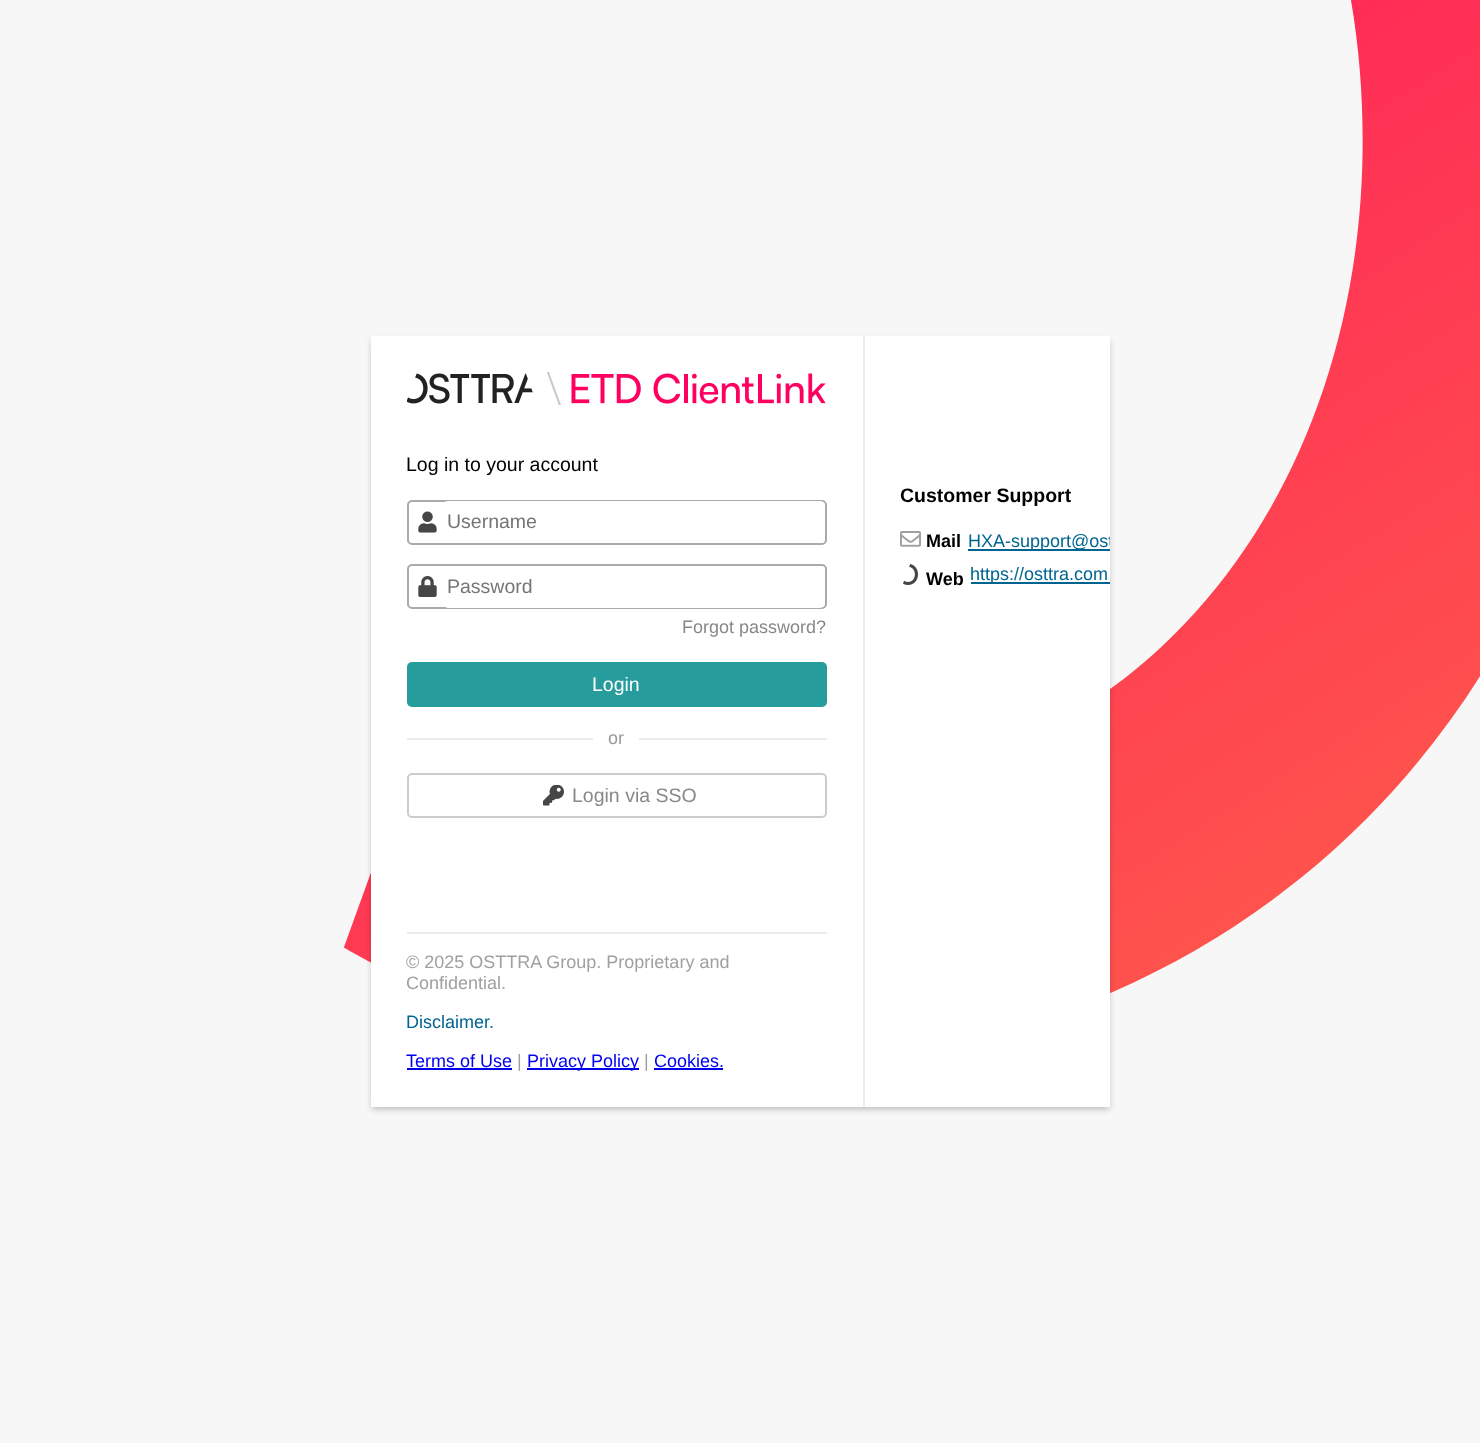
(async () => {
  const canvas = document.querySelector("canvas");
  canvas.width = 1480;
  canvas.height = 1443;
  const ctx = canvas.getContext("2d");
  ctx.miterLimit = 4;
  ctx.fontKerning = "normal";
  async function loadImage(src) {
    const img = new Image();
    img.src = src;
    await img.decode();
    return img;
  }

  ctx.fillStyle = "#f7f7f7";
  ctx.fillRect(0, 0, 1480, 1443);
  ctx.drawImage(await loadImage("img/1.png"), 343, 0, 1137, 994);
  ctx.fillStyle = "rgba(0, 0, 0, 0.25)";
  ctx.filter = "blur(3px)";
  ctx.beginPath();
  ctx.rect(372, 341, 737, 768);
  ctx.fill();
  ctx.filter = "none";
  ctx.fillStyle = "#ffffff";
  ctx.fillRect(371, 336, 739, 771);
  ctx.fillStyle = "#ececec";
  ctx.fillRect(863, 336, 2, 771);
  ctx.drawImage(await loadImage("img/2.png"), 407, 372, 419, 33);
  ctx.beginPath();
  ctx.roundRect(408, 501, 418, 43, 4);
  ctx.strokeStyle = "#aaaaaa";
  ctx.lineWidth = 2;
  ctx.stroke();
  ctx.drawImage(await loadImage("img/3.png"), 418, 511, 19, 22);
  ctx.fillStyle = "#ffffff";
  ctx.beginPath();
  ctx.roundRect(443, 501, 382, 42, 5);
  ctx.fill();
  ctx.beginPath();
  ctx.roundRect(408, 565, 418, 43, 4);
  ctx.stroke();
  ctx.drawImage(await loadImage("img/4.png"), 418, 576, 19, 21);
  ctx.beginPath();
  ctx.roundRect(443, 566, 382, 42, 5);
  ctx.fill();
  ctx.fillStyle = "#279c9c";
  ctx.beginPath();
  ctx.roundRect(407, 662, 420, 45, 5);
  ctx.fill();
  ctx.fillStyle = "#ececec";
  ctx.fillRect(407, 738, 186, 2);
  ctx.fillRect(639, 738, 188, 2);
  ctx.beginPath();
  ctx.roundRect(408, 774, 418, 43, 4);
  ctx.strokeStyle = "#cccccc";
  ctx.stroke();
  ctx.drawImage(await loadImage("img/5.png"), 543, 785, 21, 21);
  for (const [x, y, w, h, color] of [
    [407, 932, 420, 2, "#ececec"],
    [407, 1068, 105, 2, "#0000ee"],
    [527, 1068, 112, 2, "#0000ee"],
    [654, 1068, 69, 2, "#0000ee"],
  ]) {
    ctx.fillStyle = color;
    ctx.fillRect(x, y, w, h);
  }
  ctx.drawImage(await loadImage("img/6.png"), 900, 531, 21, 16);
  ctx.fillStyle = "#006491";
  ctx.fillRect(968, 549, 142, 2);
  ctx.drawImage(await loadImage("img/7.png"), 903, 564, 15, 21);
  ctx.fillRect(971, 582, 139, 2);
  ctx.font = "19.5px Liberation Sans";
  ctx.fillStyle = "#000000";
  ctx.fillText("Log in to your account", 406, 471);
  ctx.fillStyle = "#757575";
  ctx.fillText("Username", 447, 528);
  ctx.fillText("Password", 447, 593);
  ctx.font = "18px Liberation Sans";
  ctx.fillStyle = "#888888";
  ctx.fillText("Forgot password?", 682, 633);
  ctx.font = "19.5px Liberation Sans";
  ctx.fillStyle = "#ffffff";
  ctx.fillText("Login", 592, 691);
  ctx.font = "18px Liberation Sans";
  ctx.fillStyle = "#999999";
  ctx.fillText("or", 608, 744);
  ctx.font = "19.5px Liberation Sans";
  ctx.fillStyle = "#888888";
  ctx.fillText("Login via SSO", 572, 802);
  ctx.font = "18px Liberation Sans";
  ctx.fillStyle = "#a0a0a0";
  ctx.fillText("© 2025 OSTTRA Group. Proprietary and", 406, 968);
  ctx.fillText("Confidential.", 406, 989);
  ctx.fillStyle = "#006491";
  ctx.fillText("Disclaimer.", 406, 1028);
  ctx.fillStyle = "#0000ee";
  ctx.fillText("Terms of Use", 406, 1067);
  ctx.fillStyle = "#a0a0a0";
  ctx.fillText("|", 517, 1067);
  ctx.fillStyle = "#0000ee";
  ctx.fillText("Privacy Policy", 527, 1067);
  ctx.fillStyle = "#a0a0a0";
  ctx.fillText("|", 644, 1067);
  ctx.fillStyle = "#0000ee";
  ctx.fillText("Cookies.", 654, 1067);
  ctx.font = "bold 19.5px Liberation Sans";
  ctx.fillStyle = "#000000";
  ctx.fillText("Customer Support", 900, 502);
  ctx.font = "bold 18px Liberation Sans";
  ctx.fillText("Mail", 926, 547);
  ctx.save();
  ctx.beginPath();
  ctx.rect(371, 336, 739, 771);
  ctx.clip();
  ctx.font = "18px Liberation Sans";
  ctx.fillStyle = "#006491";
  ctx.fillText("HXA-support@ost", 968, 547);
  ctx.restore();
  ctx.fillText("Web", 926, 585);
  ctx.font = "18px Liberation Sans";
  ctx.fillStyle = "#006491";
  ctx.fillText("https://osttra.com", 970, 580);
})();
